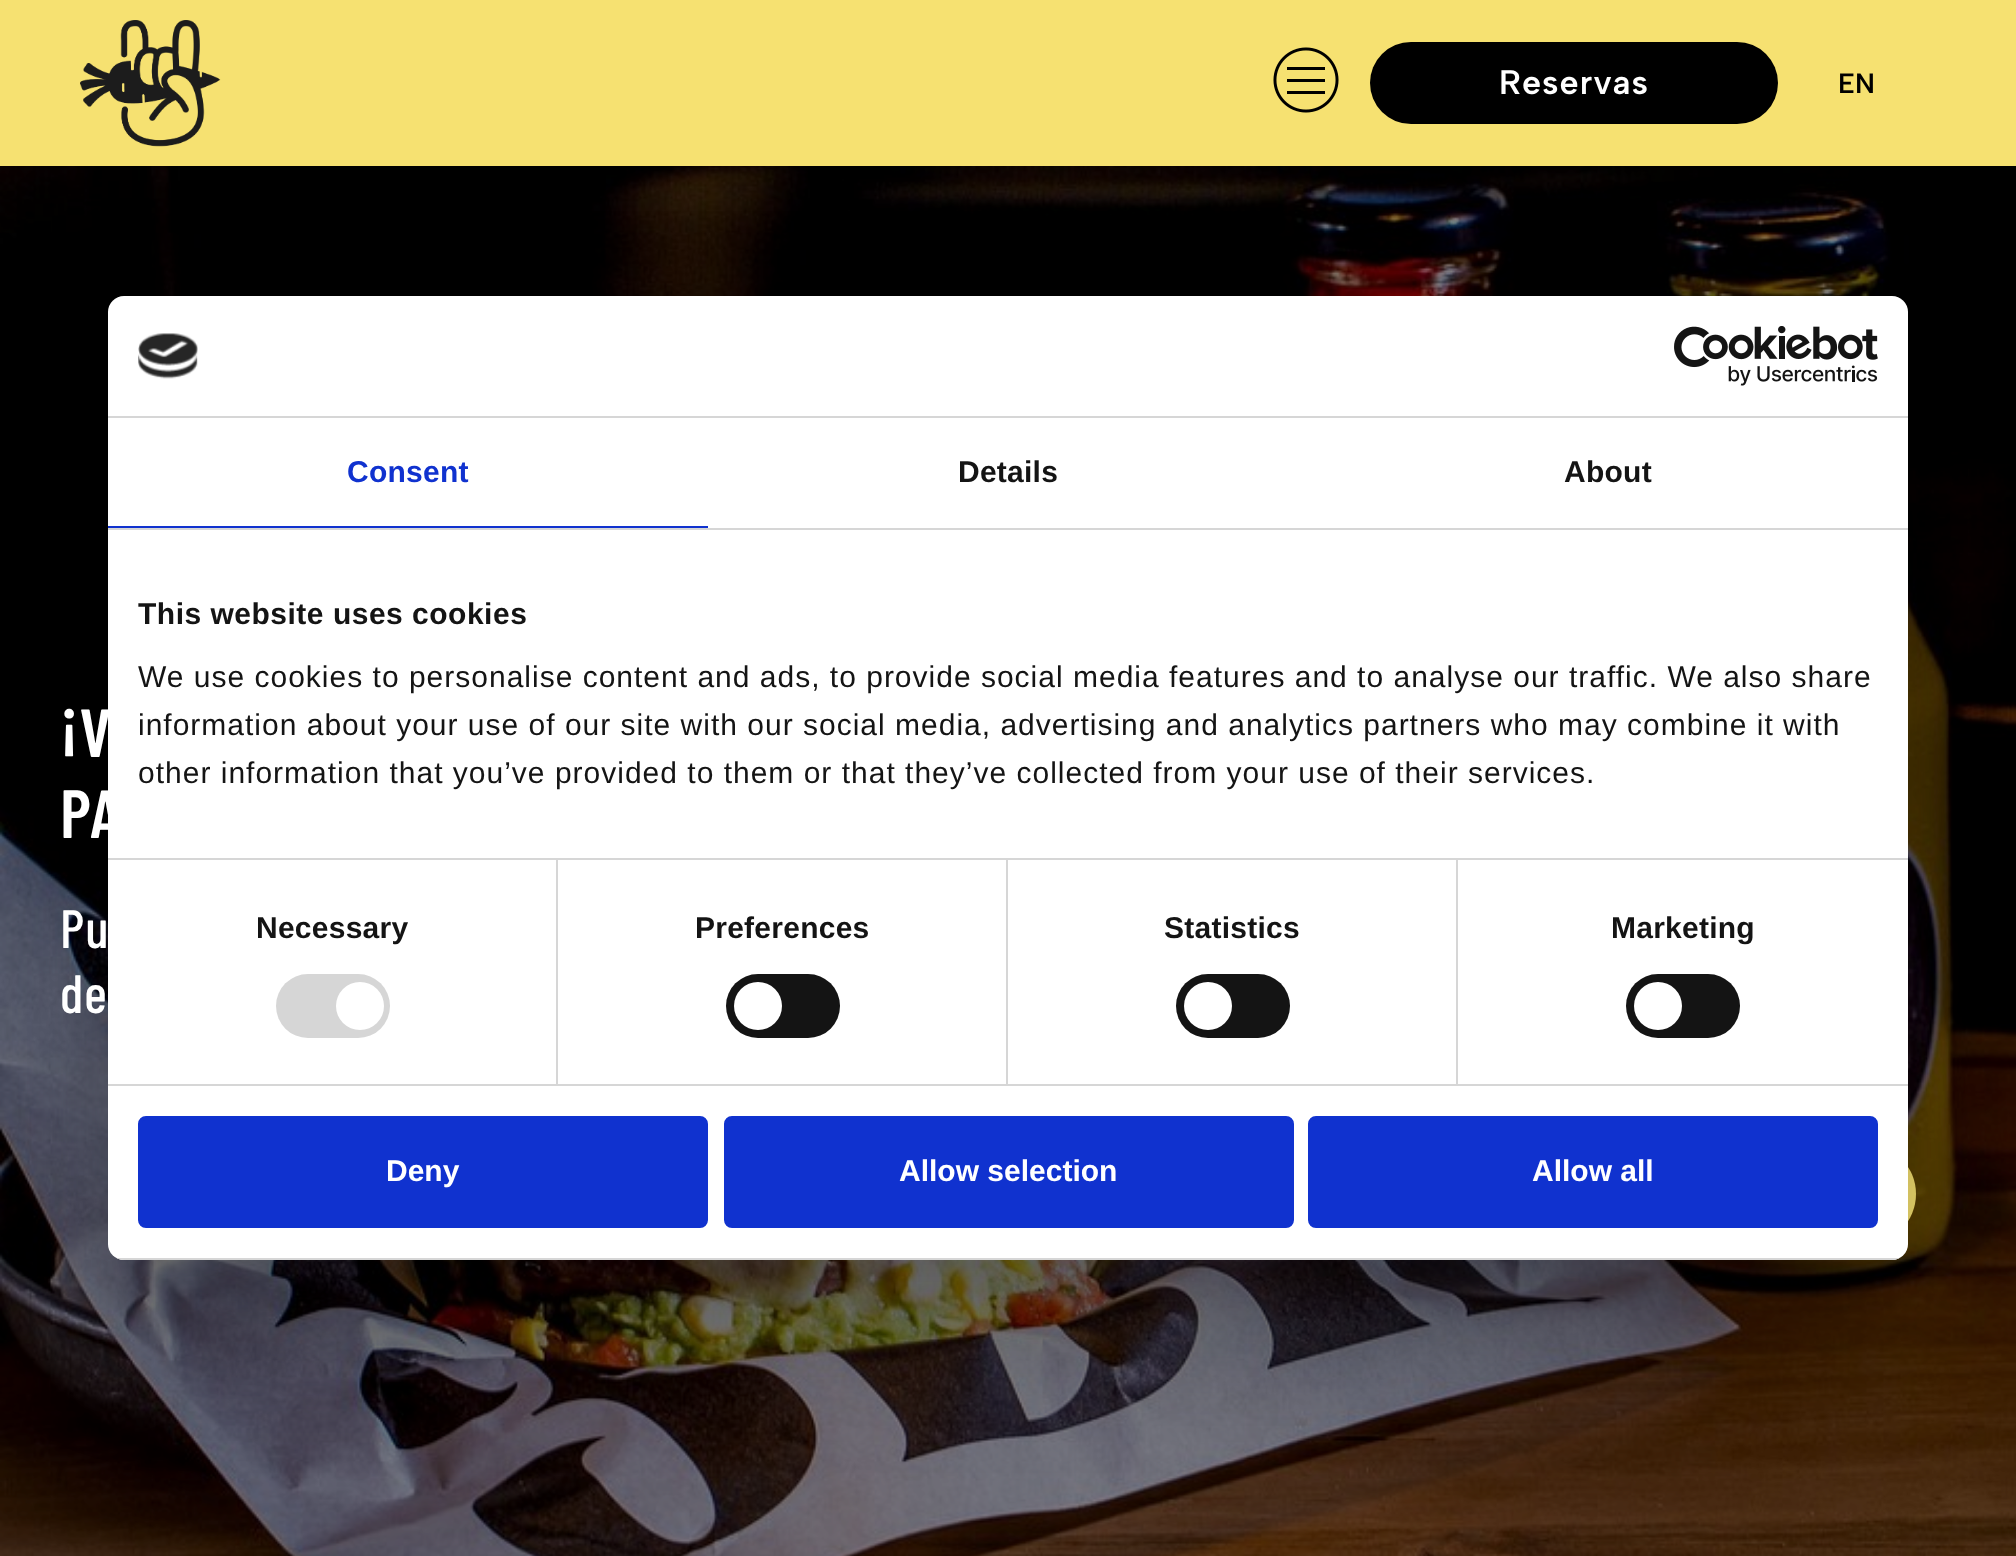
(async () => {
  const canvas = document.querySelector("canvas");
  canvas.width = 2016;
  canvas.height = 1556;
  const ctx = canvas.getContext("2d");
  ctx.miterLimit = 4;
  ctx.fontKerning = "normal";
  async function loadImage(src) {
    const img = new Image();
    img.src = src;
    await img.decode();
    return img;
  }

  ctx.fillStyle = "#ffffff";
  ctx.fillRect(0, 0, 2016, 1556);
  ctx.fillStyle = "#f6e171";
  ctx.fillRect(0, 0, 2016, 166);
  ctx.drawImage(await loadImage("img/1.png"), 80, 20, 141, 127);
  ctx.drawImage(await loadImage("img/2.png"), 1273, 47, 66, 66);
  ctx.fillStyle = "#000000";
  ctx.beginPath();
  ctx.roundRect(1370, 42, 408, 82, 41);
  ctx.fill();
  ctx.drawImage(await loadImage("img/3.png"), 0, 166, 2016, 1390);
  ctx.fillStyle = "#f6e171";
  ctx.beginPath();
  ctx.roundRect(1048, 1144, 868, 100, 50);
  ctx.fill();
  ctx.fillStyle = "rgba(0, 0, 0, 0.3)";
  ctx.filter = "blur(68px)";
  ctx.beginPath();
  ctx.roundRect(108, 360, 1800, 964, 16);
  ctx.fill();
  ctx.filter = "none";
  ctx.fillStyle = "#ffffff";
  ctx.beginPath();
  ctx.roundRect(108, 296, 1800, 964, 16);
  ctx.fill();
  ctx.fillStyle = "#d6d6d6";
  ctx.fillRect(108, 416, 1800, 2);
  ctx.drawImage(await loadImage("img/4.png"), 138, 333, 60, 46);
  ctx.drawImage(await loadImage("img/5.png"), 1674, 326, 204, 60);
  for (const [x, y, w, h, color] of [
    [108, 528, 1800, 2, "#d6d6d6"],
    [108, 526, 600, 2, "#1032cf"],
    [108, 858, 1800, 2, "#d6d6d6"],
    [108, 1084, 1800, 2, "#d6d6d6"],
    [556, 860, 2, 224, "#d6d6d6"],
  ]) {
    ctx.fillStyle = color;
    ctx.fillRect(x, y, w, h);
  }
  ctx.beginPath();
  ctx.roundRect(276, 974, 114, 64, 32);
  ctx.fill();
  ctx.fillStyle = "#ffffff";
  ctx.beginPath();
  ctx.arc(360, 1006, 24, 0, Math.PI * 2);
  ctx.fill();
  ctx.fillStyle = "#d6d6d6";
  ctx.fillRect(1006, 860, 2, 224);
  ctx.fillStyle = "#141414";
  ctx.beginPath();
  ctx.roundRect(726, 974, 114, 64, 32);
  ctx.fill();
  ctx.fillStyle = "#ffffff";
  ctx.beginPath();
  ctx.arc(758, 1006, 24, 0, Math.PI * 2);
  ctx.fill();
  ctx.fillStyle = "#d6d6d6";
  ctx.fillRect(1456, 860, 2, 224);
  ctx.fillStyle = "#141414";
  ctx.beginPath();
  ctx.roundRect(1176, 974, 114, 64, 32);
  ctx.fill();
  ctx.fillStyle = "#ffffff";
  ctx.beginPath();
  ctx.arc(1208, 1006, 24, 0, Math.PI * 2);
  ctx.fill();
  ctx.fillStyle = "#141414";
  ctx.beginPath();
  ctx.roundRect(1626, 974, 114, 64, 32);
  ctx.fill();
  ctx.fillStyle = "#ffffff";
  ctx.beginPath();
  ctx.arc(1658, 1006, 24, 0, Math.PI * 2);
  ctx.fill();
  ctx.save();
  ctx.beginPath();
  ctx.roundRect(108, 296, 1800, 964, 16);
  ctx.clip();
  ctx.fillStyle = "#d6d6d6";
  ctx.fillRect(108, 1258, 1800, 2);
  ctx.restore();
  ctx.fillStyle = "#1032cf";
  ctx.beginPath();
  ctx.roundRect(140, 1118, 566, 108, 6);
  ctx.fill();
  ctx.strokeStyle = "#1032cf";
  ctx.lineWidth = 4;
  ctx.stroke();
  ctx.beginPath();
  ctx.roundRect(726, 1118, 566, 108, 6);
  ctx.fill();
  ctx.stroke();
  ctx.beginPath();
  ctx.roundRect(1310, 1118, 566, 108, 6);
  ctx.fill();
  ctx.stroke();
  ctx.letterSpacing = "1px";
  ctx.font = "600 34px Albert Sans";
  ctx.fillStyle = "#ffffff";
  ctx.fillText("Reservas", 1499, 94);
  ctx.letterSpacing = "0px";
  ctx.font = "600 28px Albert Sans";
  ctx.fillStyle = "#000000";
  ctx.fillText("EN", 1838, 93);
  ctx.letterSpacing = "1px";
  ctx.font = "600 68px Barlow Condensed";
  ctx.fillStyle = "#ffffff";
  ctx.fillText("¡V", 60, 757);
  ctx.fillText("PA", 60, 838);
  ctx.font = "500 54px Barlow Condensed";
  ctx.fillText("Pu", 60, 948);
  ctx.fillText("de", 60, 1013);
  ctx.letterSpacing = "0.25px";
  ctx.font = "bold 30px Liberation Sans";
  ctx.fillStyle = "#1032cf";
  ctx.fillText("Consent", 347, 482);
  ctx.fillStyle = "#141414";
  ctx.fillText("Details", 958, 482);
  ctx.fillText("About", 1564, 482);
  ctx.letterSpacing = "0.5px";
  ctx.fillText("This website uses cookies", 138, 624);
  ctx.letterSpacing = "1px";
  ctx.font = "30px Liberation Sans";
  for (const [text, x, y] of [
    ["We use cookies to personalise content and ads, to provide social media features and to analyse our traffic. We also share", 138, 687],
    ["information about your use of our site with our social media, advertising and analytics partners who may combine it with", 138, 735],
    ["other information that you’ve provided to them or that they’ve collected from your use of their services.", 138, 783],
  ]) {
    ctx.fillText(text, x, y);
  }
  ctx.letterSpacing = "0.25px";
  ctx.font = "bold 30px Liberation Sans";
  for (const [text, x, y] of [
    ["Necessary", 256, 938],
    ["Preferences", 695, 938],
    ["Statistics", 1164, 938],
    ["Marketing", 1611, 938],
  ]) {
    ctx.fillText(text, x, y);
  }
  ctx.letterSpacing = "0px";
  ctx.fillStyle = "#ffffff";
  for (const [text, x, y] of [
    ["Deny", 386, 1181],
    ["Allow selection", 899, 1181],
    ["Allow all", 1532, 1181],
  ]) {
    ctx.fillText(text, x, y);
  }
})();
